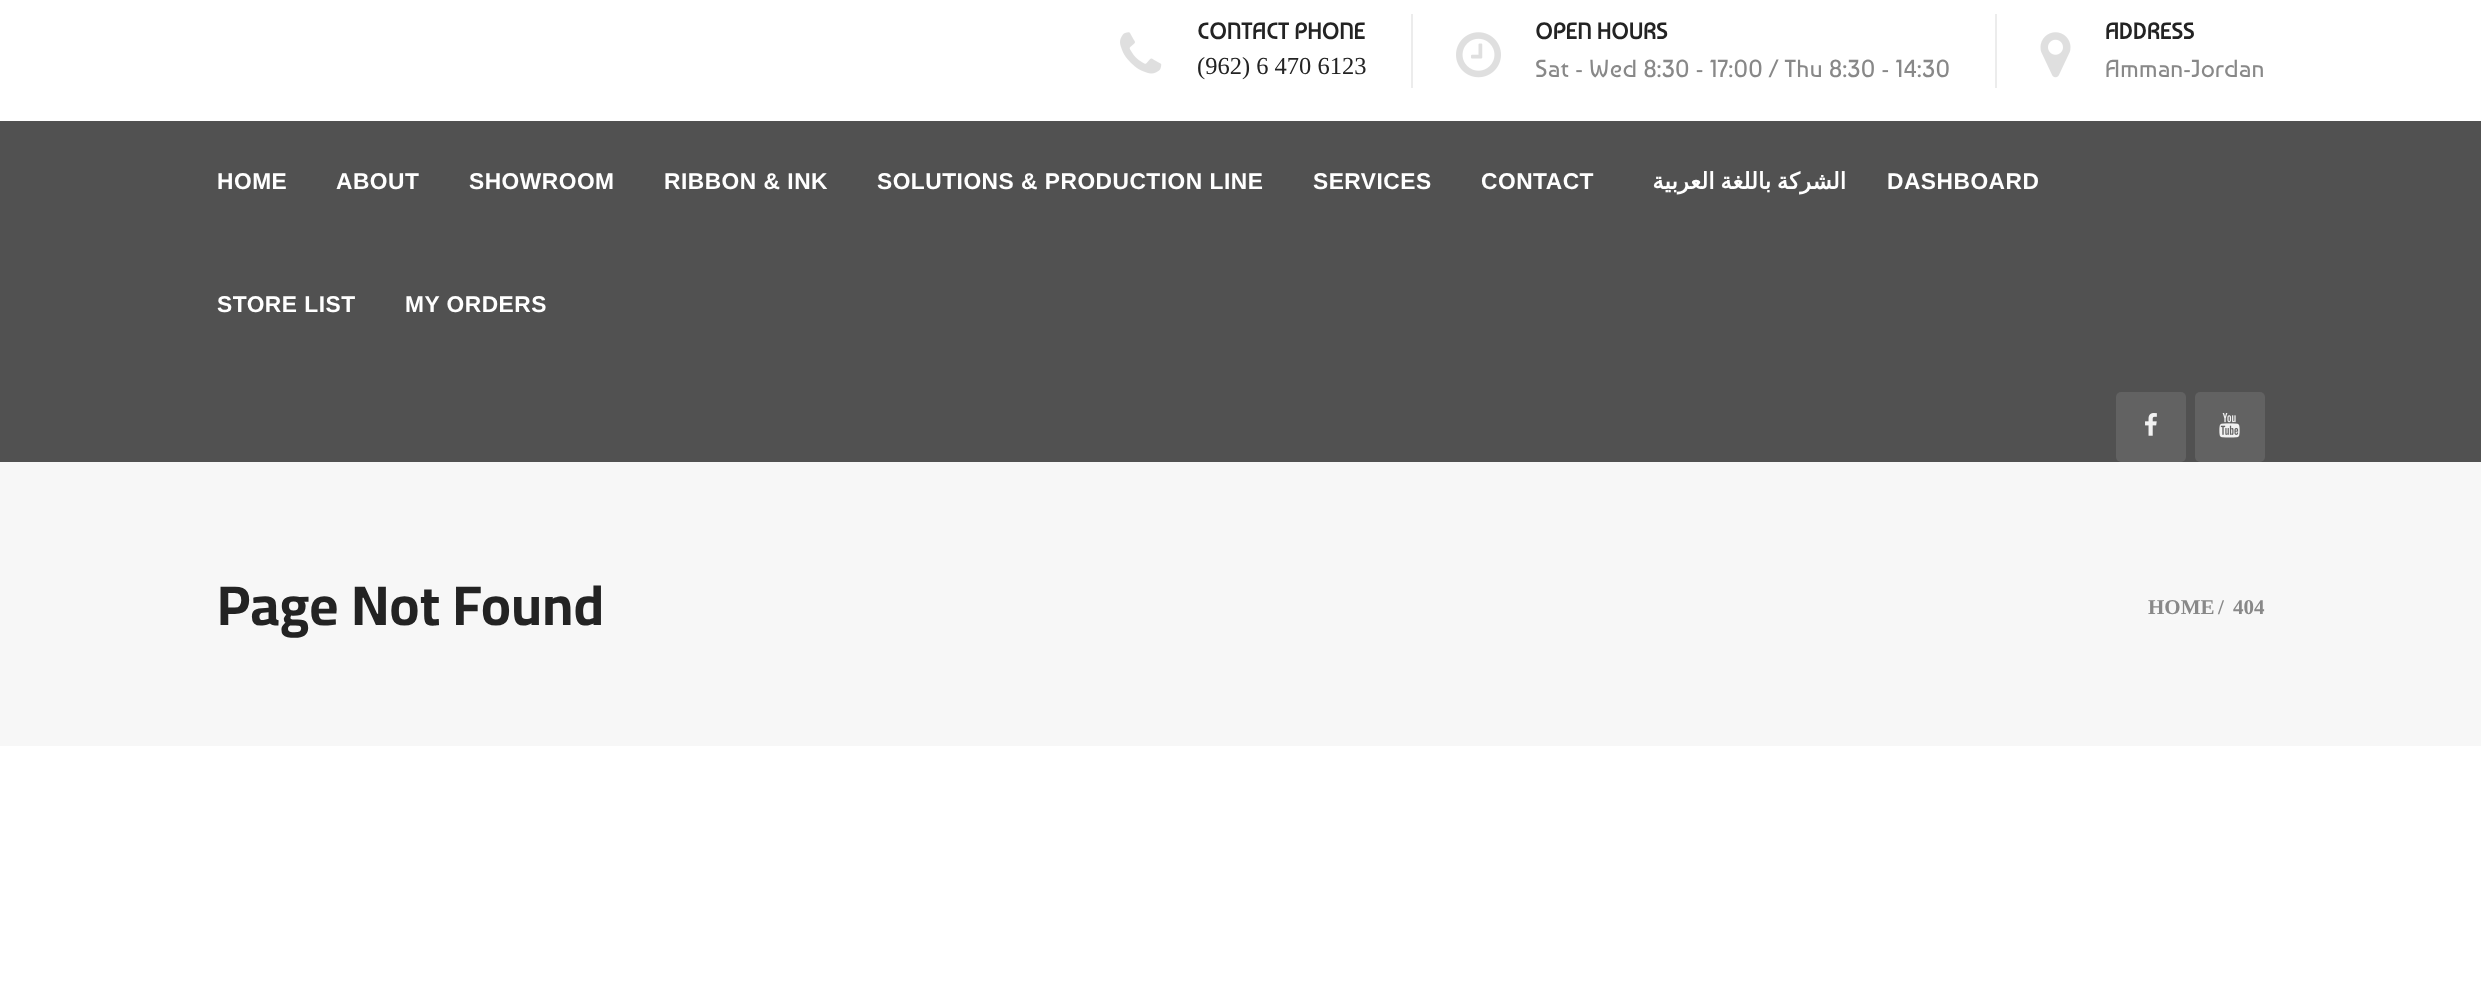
(async () => {
  const canvas = document.querySelector("canvas");
  canvas.width = 2481;
  canvas.height = 1002;
  const ctx = canvas.getContext("2d");
  ctx.miterLimit = 4;
  ctx.fontKerning = "normal";
  async function loadImage(src) {
    const img = new Image();
    img.src = src;
    await img.decode();
    return img;
  }

  ctx.fillStyle = "#ffffff";
  ctx.fillRect(0, 0, 2481, 1002);
  ctx.drawImage(await loadImage("img/1.png"), 1120, 32, 42, 42);
  ctx.fillStyle = "#ececec";
  ctx.fillRect(1411, 14, 2, 74);
  ctx.drawImage(await loadImage("img/2.png"), 1456, 32, 45, 46);
  ctx.fillRect(1995, 14, 2, 74);
  ctx.drawImage(await loadImage("img/3.png"), 2040, 32, 31, 46);
  ctx.fillStyle = "#515151";
  ctx.fillRect(0, 121, 2481, 341);
  ctx.fillStyle = "#626262";
  ctx.beginPath();
  ctx.roundRect(2116, 392, 70, 70, 5);
  ctx.fill();
  ctx.drawImage(await loadImage("img/4.png"), 2145, 413, 12, 23);
  ctx.beginPath();
  ctx.roundRect(2195, 392, 70, 70, 5);
  ctx.fill();
  ctx.drawImage(await loadImage("img/5.png"), 2219, 413, 21, 25);
  ctx.fillStyle = "#f7f7f7";
  ctx.fillRect(0, 462, 2481, 284);
  ctx.font = "bold 22.75px Baumans";
  ctx.fillStyle = "#232323";
  ctx.fillText("CONTACT PHONE", 1197, 39);
  ctx.font = "24.5px Liberation Serif";
  ctx.fillText("(962) 6 470 6123", 1197, 74);
  ctx.font = "bold 22.75px Baumans";
  ctx.fillText("OPEN HOURS", 1535, 39);
  ctx.letterSpacing = "0.35px";
  ctx.font = "24.5px Baumans";
  ctx.fillStyle = "#888888";
  ctx.fillText("Sat - Wed 8:30 - 17:00 / Thu 8:30 - 14:30", 1535, 77);
  ctx.letterSpacing = "0px";
  ctx.font = "bold 22.75px Baumans";
  ctx.fillStyle = "#232323";
  ctx.fillText("ADDRESS", 2105, 39);
  ctx.letterSpacing = "0.35px";
  ctx.font = "24.5px Baumans";
  ctx.fillStyle = "#888888";
  ctx.fillText("Amman-Jordan", 2105, 77);
  ctx.letterSpacing = "0.5px";
  ctx.font = "bold 22.75px Liberation Sans";
  ctx.fillStyle = "#ffffff";
  for (const [text, x, y] of [
    ["HOME", 217, 189],
    ["ABOUT", 336, 189],
    ["SHOWROOM", 469, 189],
    ["RIBBON & INK", 664, 189],
    ["SOLUTIONS & PRODUCTION LINE", 877, 189],
    ["SERVICES", 1313, 189],
    ["CONTACT", 1481, 189],
  ]) {
    ctx.fillText(text, x, y);
  }
  ctx.wordSpacing = "-2px";
  ctx.direction = "rtl";
  ctx.font = "bold 22.75px DejaVu Sans";
  ctx.fillText("الشركة باللغة العربية", 1846, 189);
  ctx.wordSpacing = "0px";
  ctx.direction = "ltr";
  ctx.font = "bold 22.75px Liberation Sans";
  for (const [text, x, y] of [
    ["DASHBOARD", 1887, 189],
    ["STORE LIST", 217, 312],
    ["MY ORDERS", 405, 312],
  ]) {
    ctx.fillText(text, x, y);
  }
  ctx.letterSpacing = "0.25px";
  ctx.font = "bold 56px Cairo";
  ctx.fillStyle = "#232323";
  ctx.fillText("Page Not Found", 217, 625);
  ctx.letterSpacing = "0px";
  ctx.font = "bold 21px Liberation Serif";
  ctx.fillStyle = "#888888";
  for (const [text, x, y] of [
    ["HOME", 2148, 614],
    ["/", 2218, 614],
    ["404", 2233, 614],
  ]) {
    ctx.fillText(text, x, y);
  }
})();
